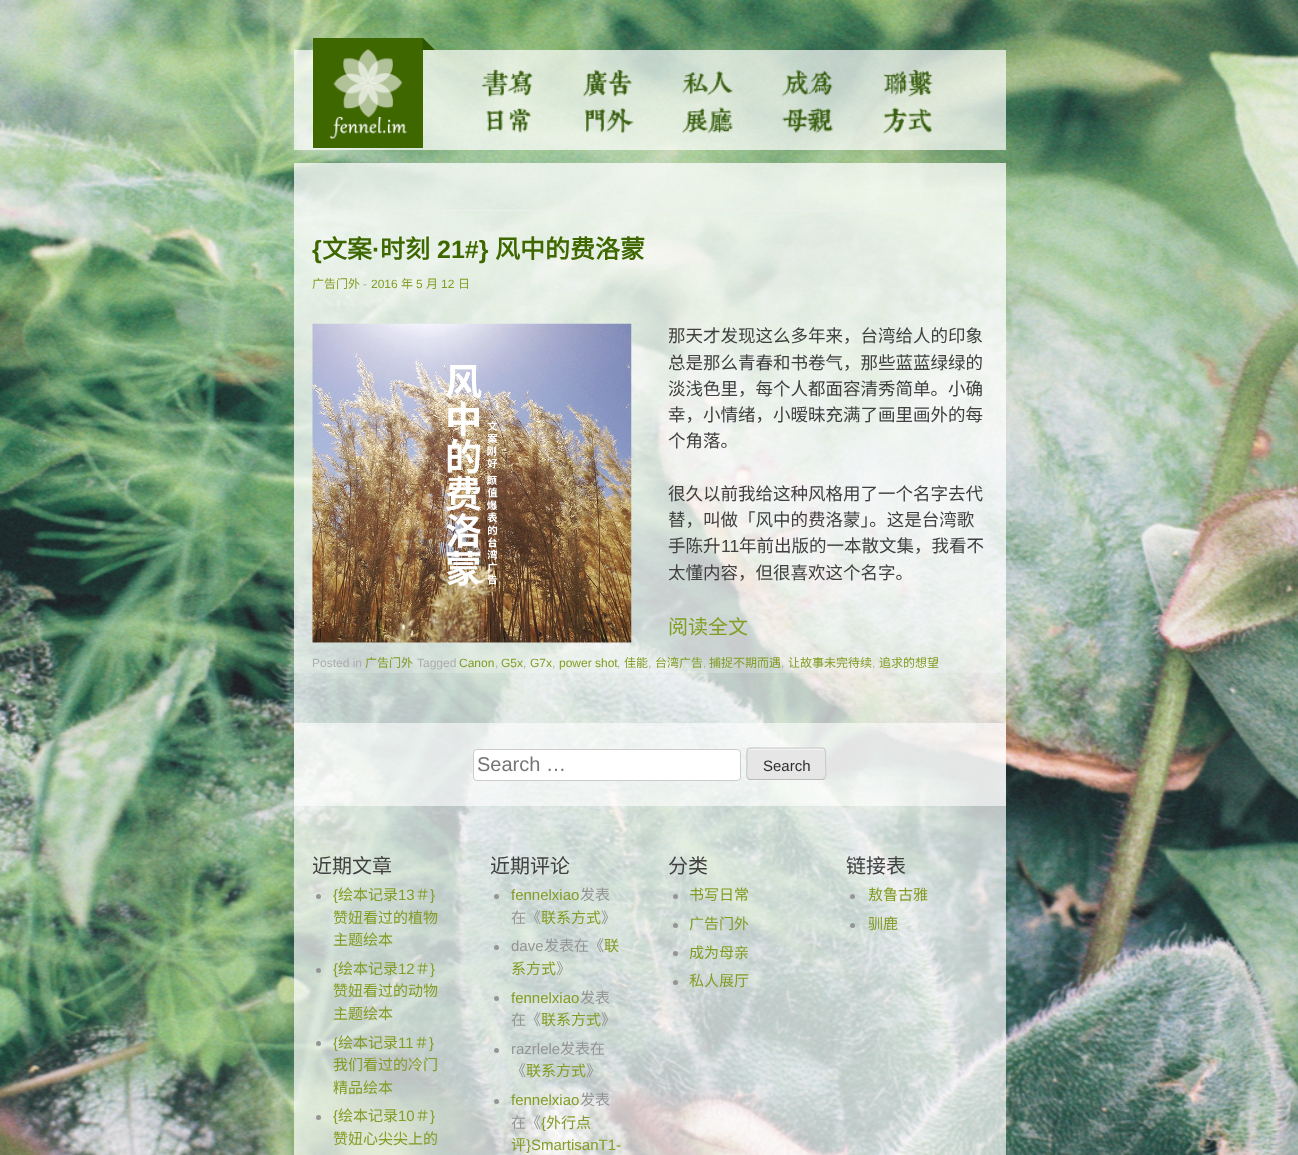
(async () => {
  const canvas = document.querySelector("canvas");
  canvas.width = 1298;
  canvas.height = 1155;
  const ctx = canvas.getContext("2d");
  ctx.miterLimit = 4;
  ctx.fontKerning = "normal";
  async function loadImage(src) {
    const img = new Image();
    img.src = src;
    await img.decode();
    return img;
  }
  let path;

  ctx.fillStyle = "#ffffff";
  ctx.fillRect(0, 0, 1298, 1155);
  ctx.drawImage(await loadImage("img/1.png"), 0, 0, 1298, 1155);
  ctx.fillStyle = "rgba(255, 255, 255, 0.7)";
  ctx.fillRect(294, 50, 712, 100);
  ctx.fillStyle = "#3e6700";
  ctx.fillRect(313, 38, 110, 110);
  ctx.fillStyle = "#2c5600";
  path = new Path2D("M435 50H422.5V37.5Z");
  ctx.fill(path);
  ctx.drawImage(await loadImage("img/2.png"), 329, 49, 78, 90);
  ctx.drawImage(await loadImage("img/3.png"), 481, 68, 52, 65);
  ctx.drawImage(await loadImage("img/4.png"), 582, 69, 52, 64);
  ctx.drawImage(await loadImage("img/5.png"), 682, 71, 51, 63);
  ctx.drawImage(await loadImage("img/6.png"), 781, 69, 52, 64);
  ctx.drawImage(await loadImage("img/7.png"), 883, 69, 50, 65);
  for (const [x, y, w, h, color] of [
    [294, 163, 712, 992, "rgba(255, 255, 255, 0.7)"],
    [294, 163, 712, 510, "rgba(255, 255, 255, 0.2)"],
    [294, 210, 712, 1, "#eeeeee"],
  ]) {
    ctx.fillStyle = color;
    ctx.fillRect(x, y, w, h);
  }
  ctx.drawImage(await loadImage("img/8.png"), 312, 323, 320, 320);
  ctx.fillStyle = "rgba(255, 255, 255, 0.6)";
  ctx.fillRect(294, 723, 712, 83);
  ctx.fillStyle = "#ffffff";
  ctx.beginPath();
  ctx.roundRect(473.5, 749.5, 267, 31, 3.5);
  ctx.fill();
  ctx.strokeStyle = "#cccccc";
  ctx.stroke();
  ctx.fillStyle = "#e6e6e6";
  ctx.beginPath();
  ctx.roundRect(746, 748, 80, 32, 4);
  ctx.fill();
  ctx.fillStyle = "#f3f3f3";
  path = new Path2D("M750 750H822C824 750 825 751 825 752C825 746 811 749 810 749H762C762 749 748 746 748 752C748 751 749 750 750 750Z");
  ctx.fill(path);
  path = new Path2D("M824.5 778.5L823 779.5H749.5L748 778.5");
  ctx.strokeStyle = "#bbbbbb";
  ctx.lineWidth = 1.2;
  ctx.stroke(path);
  path = new Path2D("M748 778.5C745.5 776.5 747 766.5 747 764C747 745.5 744 748 762 748H810.5C828.5 748 825.5 745.5 825.5 764C825.5 766.5 827 776.5 824.5 778.5");
  ctx.strokeStyle = "#cccccc";
  ctx.stroke(path);
  ctx.fillStyle = "#959595";
  ctx.beginPath();
  ctx.arc(318.5, 896.5, 2.5, 0, Math.PI * 2);
  ctx.fill();
  ctx.beginPath();
  ctx.arc(318.5, 970.5, 2.5, 0, Math.PI * 2);
  ctx.fill();
  ctx.beginPath();
  ctx.arc(318.5, 1043.5, 2.5, 0, Math.PI * 2);
  ctx.fill();
  ctx.beginPath();
  ctx.arc(318.5, 1117.5, 2.5, 0, Math.PI * 2);
  ctx.fill();
  ctx.beginPath();
  ctx.arc(496.5, 896.5, 2.5, 0, Math.PI * 2);
  ctx.fill();
  ctx.beginPath();
  ctx.arc(496.5, 947.5, 2.5, 0, Math.PI * 2);
  ctx.fill();
  ctx.beginPath();
  ctx.arc(496.5, 998.5, 2.5, 0, Math.PI * 2);
  ctx.fill();
  ctx.beginPath();
  ctx.arc(496.5, 1050.5, 2.5, 0, Math.PI * 2);
  ctx.fill();
  ctx.beginPath();
  ctx.arc(496.5, 1101.5, 2.5, 0, Math.PI * 2);
  ctx.fill();
  ctx.beginPath();
  ctx.arc(675.5, 896.5, 2.5, 0, Math.PI * 2);
  ctx.fill();
  ctx.beginPath();
  ctx.arc(675.5, 925.5, 2.5, 0, Math.PI * 2);
  ctx.fill();
  ctx.beginPath();
  ctx.arc(675.5, 953.5, 2.5, 0, Math.PI * 2);
  ctx.fill();
  ctx.beginPath();
  ctx.arc(675.5, 982.5, 2.5, 0, Math.PI * 2);
  ctx.fill();
  ctx.beginPath();
  ctx.arc(852.5, 896.5, 2.5, 0, Math.PI * 2);
  ctx.fill();
  ctx.beginPath();
  ctx.arc(852.5, 925.5, 2.5, 0, Math.PI * 2);
  ctx.fill();
  ctx.font = "bold 25px Liberation Sans";
  ctx.fillStyle = "#3e6700";
  ctx.fillText("{", 312, 258);
  ctx.font = "bold 25px Noto Sans CJK SC";
  ctx.fillText("文案", 322, 258);
  ctx.font = "bold 25px Liberation Sans";
  ctx.fillText("·", 372, 258);
  ctx.font = "bold 25px Noto Sans CJK SC";
  ctx.fillText("时刻", 380, 258);
  ctx.font = "bold 25px Liberation Sans";
  ctx.fillText("21#}", 437, 258);
  ctx.font = "bold 25px Noto Sans CJK SC";
  ctx.fillText("风中的费洛蒙", 495, 258);
  ctx.font = "12px Noto Sans CJK SC";
  ctx.fillStyle = "#839c24";
  ctx.fillText("广告门外", 312, 288);
  ctx.font = "12px Liberation Sans";
  ctx.fillStyle = "#acacac";
  ctx.fillText("-", 363, 288);
  ctx.fillStyle = "#839c24";
  ctx.fillText("2016", 371, 288);
  ctx.font = "12px Noto Sans CJK SC";
  ctx.fillText("年", 401, 288);
  ctx.font = "12px Liberation Sans";
  ctx.fillText("5", 416, 288);
  ctx.font = "12px Noto Sans CJK SC";
  ctx.fillText("月", 426, 288);
  ctx.font = "12px Liberation Sans";
  ctx.fillText("12", 441, 288);
  ctx.font = "12px Noto Sans CJK SC";
  ctx.fillText("日", 458, 288);
  ctx.font = "17.5px Noto Sans CJK SC";
  ctx.fillStyle = "#404040";
  for (const [text, x, y] of [
    ["那天才发现这么多年来，台湾给人的印象", 668, 342],
    ["总是那么青春和书卷气，那些蓝蓝绿绿的", 668, 369],
    ["淡浅色里，每个人都面容清秀简单。小确", 668, 395],
    ["幸，小情绪，小暧昧充满了画里画外的每", 668, 421],
    ["个角落。", 668, 447],
    ["很久以前我给这种风格用了一个名字去代", 668, 500],
    ["替，叫做「风中的费洛蒙」。这是台湾歌", 668, 526],
    ["手陈升", 668, 552],
  ]) {
    ctx.fillText(text, x, y);
  }
  ctx.font = "17.5px Liberation Sans";
  ctx.fillText("11", 721, 552);
  ctx.font = "17.5px Noto Sans CJK SC";
  ctx.fillText("年前出版的一本散文集，我看不", 739, 552);
  ctx.fillText("太懂内容，但很喜欢这个名字。", 668, 579);
  ctx.font = "20px Noto Sans CJK SC";
  ctx.fillStyle = "#839c24";
  ctx.fillText("阅读全文", 668, 634);
  ctx.font = "12px Liberation Sans";
  ctx.fillStyle = "#acacac";
  ctx.fillText("Posted in", 312, 667);
  ctx.font = "12px Noto Sans CJK SC";
  ctx.fillStyle = "#839c24";
  ctx.fillText("广告门外", 365, 667);
  ctx.font = "12px Liberation Sans";
  ctx.fillStyle = "#acacac";
  ctx.fillText("Tagged", 417, 667);
  ctx.fillStyle = "#839c24";
  ctx.fillText("Canon", 459, 667);
  ctx.fillStyle = "#acacac";
  ctx.fillText(",", 495, 667);
  ctx.fillStyle = "#839c24";
  ctx.fillText("G5x", 501, 667);
  ctx.fillStyle = "#acacac";
  ctx.fillText(",", 523, 667);
  ctx.fillStyle = "#839c24";
  ctx.fillText("G7x", 530, 667);
  ctx.fillStyle = "#acacac";
  ctx.fillText(",", 552, 667);
  ctx.fillStyle = "#839c24";
  ctx.fillText("power shot", 559, 667);
  ctx.fillStyle = "#acacac";
  ctx.fillText(",", 617, 667);
  ctx.font = "12px Noto Sans CJK SC";
  ctx.fillStyle = "#839c24";
  ctx.fillText("佳能", 624, 667);
  ctx.font = "12px Liberation Sans";
  ctx.fillStyle = "#acacac";
  ctx.fillText(",", 648, 667);
  ctx.font = "12px Noto Sans CJK SC";
  ctx.fillStyle = "#839c24";
  ctx.fillText("台湾广告", 655, 667);
  ctx.font = "12px Liberation Sans";
  ctx.fillStyle = "#acacac";
  ctx.fillText(",", 703, 667);
  ctx.font = "12px Noto Sans CJK SC";
  ctx.fillStyle = "#839c24";
  ctx.fillText("捕捉不期而遇", 709, 667);
  ctx.font = "12px Liberation Sans";
  ctx.fillStyle = "#acacac";
  ctx.fillText(",", 781, 667);
  ctx.font = "12px Noto Sans CJK SC";
  ctx.fillStyle = "#839c24";
  ctx.fillText("让故事未完待续", 788, 667);
  ctx.font = "12px Liberation Sans";
  ctx.fillStyle = "#acacac";
  ctx.fillText(",", 872, 667);
  ctx.font = "12px Noto Sans CJK SC";
  ctx.fillStyle = "#839c24";
  ctx.fillText("追求的想望", 879, 667);
  ctx.font = "20px Liberation Sans";
  ctx.fillStyle = "#757575";
  ctx.fillText("Search …", 477, 771);
  ctx.font = "15px Liberation Sans";
  ctx.fillStyle = "#2e2e2e";
  ctx.fillText("Search", 763, 771);
  ctx.font = "20px Noto Sans CJK SC";
  ctx.fillStyle = "#404040";
  ctx.fillText("近期文章", 312, 873);
  ctx.font = "15px Liberation Sans";
  ctx.fillStyle = "#839c24";
  ctx.fillText("{", 333, 900);
  ctx.font = "15px Noto Sans CJK SC";
  ctx.fillText("绘本记录", 338, 900);
  ctx.font = "15px Liberation Sans";
  ctx.fillText("13", 398, 900);
  ctx.font = "15px Noto Sans CJK SC";
  ctx.fillText("＃", 415, 900);
  ctx.font = "15px Liberation Sans";
  ctx.fillText("}", 430, 900);
  ctx.font = "15px Noto Sans CJK SC";
  ctx.fillText("赞妞看过的植物", 333, 923);
  ctx.fillText("主题绘本", 333, 945);
  ctx.font = "15px Liberation Sans";
  ctx.fillText("{", 333, 974);
  ctx.font = "15px Noto Sans CJK SC";
  ctx.fillText("绘本记录", 338, 974);
  ctx.font = "15px Liberation Sans";
  ctx.fillText("12", 398, 974);
  ctx.font = "15px Noto Sans CJK SC";
  ctx.fillText("＃", 415, 974);
  ctx.font = "15px Liberation Sans";
  ctx.fillText("}", 430, 974);
  ctx.font = "15px Noto Sans CJK SC";
  ctx.fillText("赞妞看过的动物", 333, 996);
  ctx.fillText("主题绘本", 333, 1019);
  ctx.font = "15px Liberation Sans";
  ctx.fillText("{", 333, 1048);
  ctx.font = "15px Noto Sans CJK SC";
  ctx.fillText("绘本记录", 338, 1048);
  ctx.font = "15px Liberation Sans";
  ctx.fillText("11", 398, 1048);
  ctx.font = "15px Noto Sans CJK SC";
  ctx.fillText("＃", 414, 1048);
  ctx.font = "15px Liberation Sans";
  ctx.fillText("}", 429, 1048);
  ctx.font = "15px Noto Sans CJK SC";
  ctx.fillText("我们看过的冷门", 333, 1070);
  ctx.fillText("精品绘本", 333, 1093);
  ctx.font = "15px Liberation Sans";
  ctx.fillText("{", 333, 1121);
  ctx.font = "15px Noto Sans CJK SC";
  ctx.fillText("绘本记录", 338, 1121);
  ctx.font = "15px Liberation Sans";
  ctx.fillText("10", 398, 1121);
  ctx.font = "15px Noto Sans CJK SC";
  ctx.fillText("＃", 415, 1121);
  ctx.font = "15px Liberation Sans";
  ctx.fillText("}", 430, 1121);
  ctx.font = "15px Noto Sans CJK SC";
  ctx.fillText("赞妞心尖尖上的", 333, 1144);
  ctx.font = "20px Noto Sans CJK SC";
  ctx.fillStyle = "#404040";
  ctx.fillText("近期评论", 490, 873);
  ctx.font = "15px Liberation Sans";
  ctx.fillStyle = "#839c24";
  ctx.fillText("fennelxiao", 511, 900);
  ctx.font = "15px Noto Sans CJK SC";
  ctx.fillStyle = "#959595";
  ctx.fillText("发表", 580, 900);
  ctx.fillText("在《", 511, 923);
  ctx.fillStyle = "#839c24";
  ctx.fillText("联系方式", 541, 923);
  ctx.fillStyle = "#959595";
  ctx.fillText("》", 601, 923);
  ctx.font = "15px Liberation Sans";
  ctx.fillText("dave", 511, 951);
  ctx.font = "15px Noto Sans CJK SC";
  ctx.fillText("发表在《", 544, 951);
  ctx.fillStyle = "#839c24";
  ctx.fillText("联", 604, 951);
  ctx.fillText("系方式", 511, 974);
  ctx.fillStyle = "#959595";
  ctx.fillText("》", 556, 974);
  ctx.font = "15px Liberation Sans";
  ctx.fillStyle = "#839c24";
  ctx.fillText("fennelxiao", 511, 1003);
  ctx.font = "15px Noto Sans CJK SC";
  ctx.fillStyle = "#959595";
  ctx.fillText("发表", 580, 1003);
  ctx.fillText("在《", 511, 1025);
  ctx.fillStyle = "#839c24";
  ctx.fillText("联系方式", 541, 1025);
  ctx.fillStyle = "#959595";
  ctx.fillText("》", 601, 1025);
  ctx.font = "15px Liberation Sans";
  ctx.fillText("razrlele", 511, 1054);
  ctx.font = "15px Noto Sans CJK SC";
  ctx.fillText("发表在", 560, 1054);
  ctx.fillText("《", 511, 1076);
  ctx.fillStyle = "#839c24";
  ctx.fillText("联系方式", 526, 1076);
  ctx.fillStyle = "#959595";
  ctx.fillText("》", 586, 1076);
  ctx.font = "15px Liberation Sans";
  ctx.fillStyle = "#839c24";
  ctx.fillText("fennelxiao", 511, 1105);
  ctx.font = "15px Noto Sans CJK SC";
  ctx.fillStyle = "#959595";
  ctx.fillText("发表", 580, 1105);
  ctx.fillText("在《", 511, 1128);
  ctx.font = "15px Liberation Sans";
  ctx.fillStyle = "#839c24";
  ctx.fillText("{", 541, 1128);
  ctx.font = "15px Noto Sans CJK SC";
  ctx.fillText("外行点", 546, 1128);
  ctx.fillText("评", 511, 1150);
  ctx.font = "15px Liberation Sans";
  ctx.fillText("}SmartisanT1-", 526, 1150);
  ctx.font = "20px Noto Sans CJK SC";
  ctx.fillStyle = "#404040";
  ctx.fillText("分类", 668, 873);
  ctx.font = "15px Noto Sans CJK SC";
  ctx.fillStyle = "#839c24";
  for (const [text, x, y] of [
    ["书写日常", 689, 900],
    ["广告门外", 689, 929],
    ["成为母亲", 689, 958],
    ["私人展厅", 689, 986],
  ]) {
    ctx.fillText(text, x, y);
  }
  ctx.font = "20px Noto Sans CJK SC";
  ctx.fillStyle = "#404040";
  ctx.fillText("链接表", 846, 873);
  ctx.font = "15px Noto Sans CJK SC";
  ctx.fillStyle = "#839c24";
  ctx.fillText("敖鲁古雅", 868, 900);
  ctx.fillText("驯鹿", 868, 929);
})();
